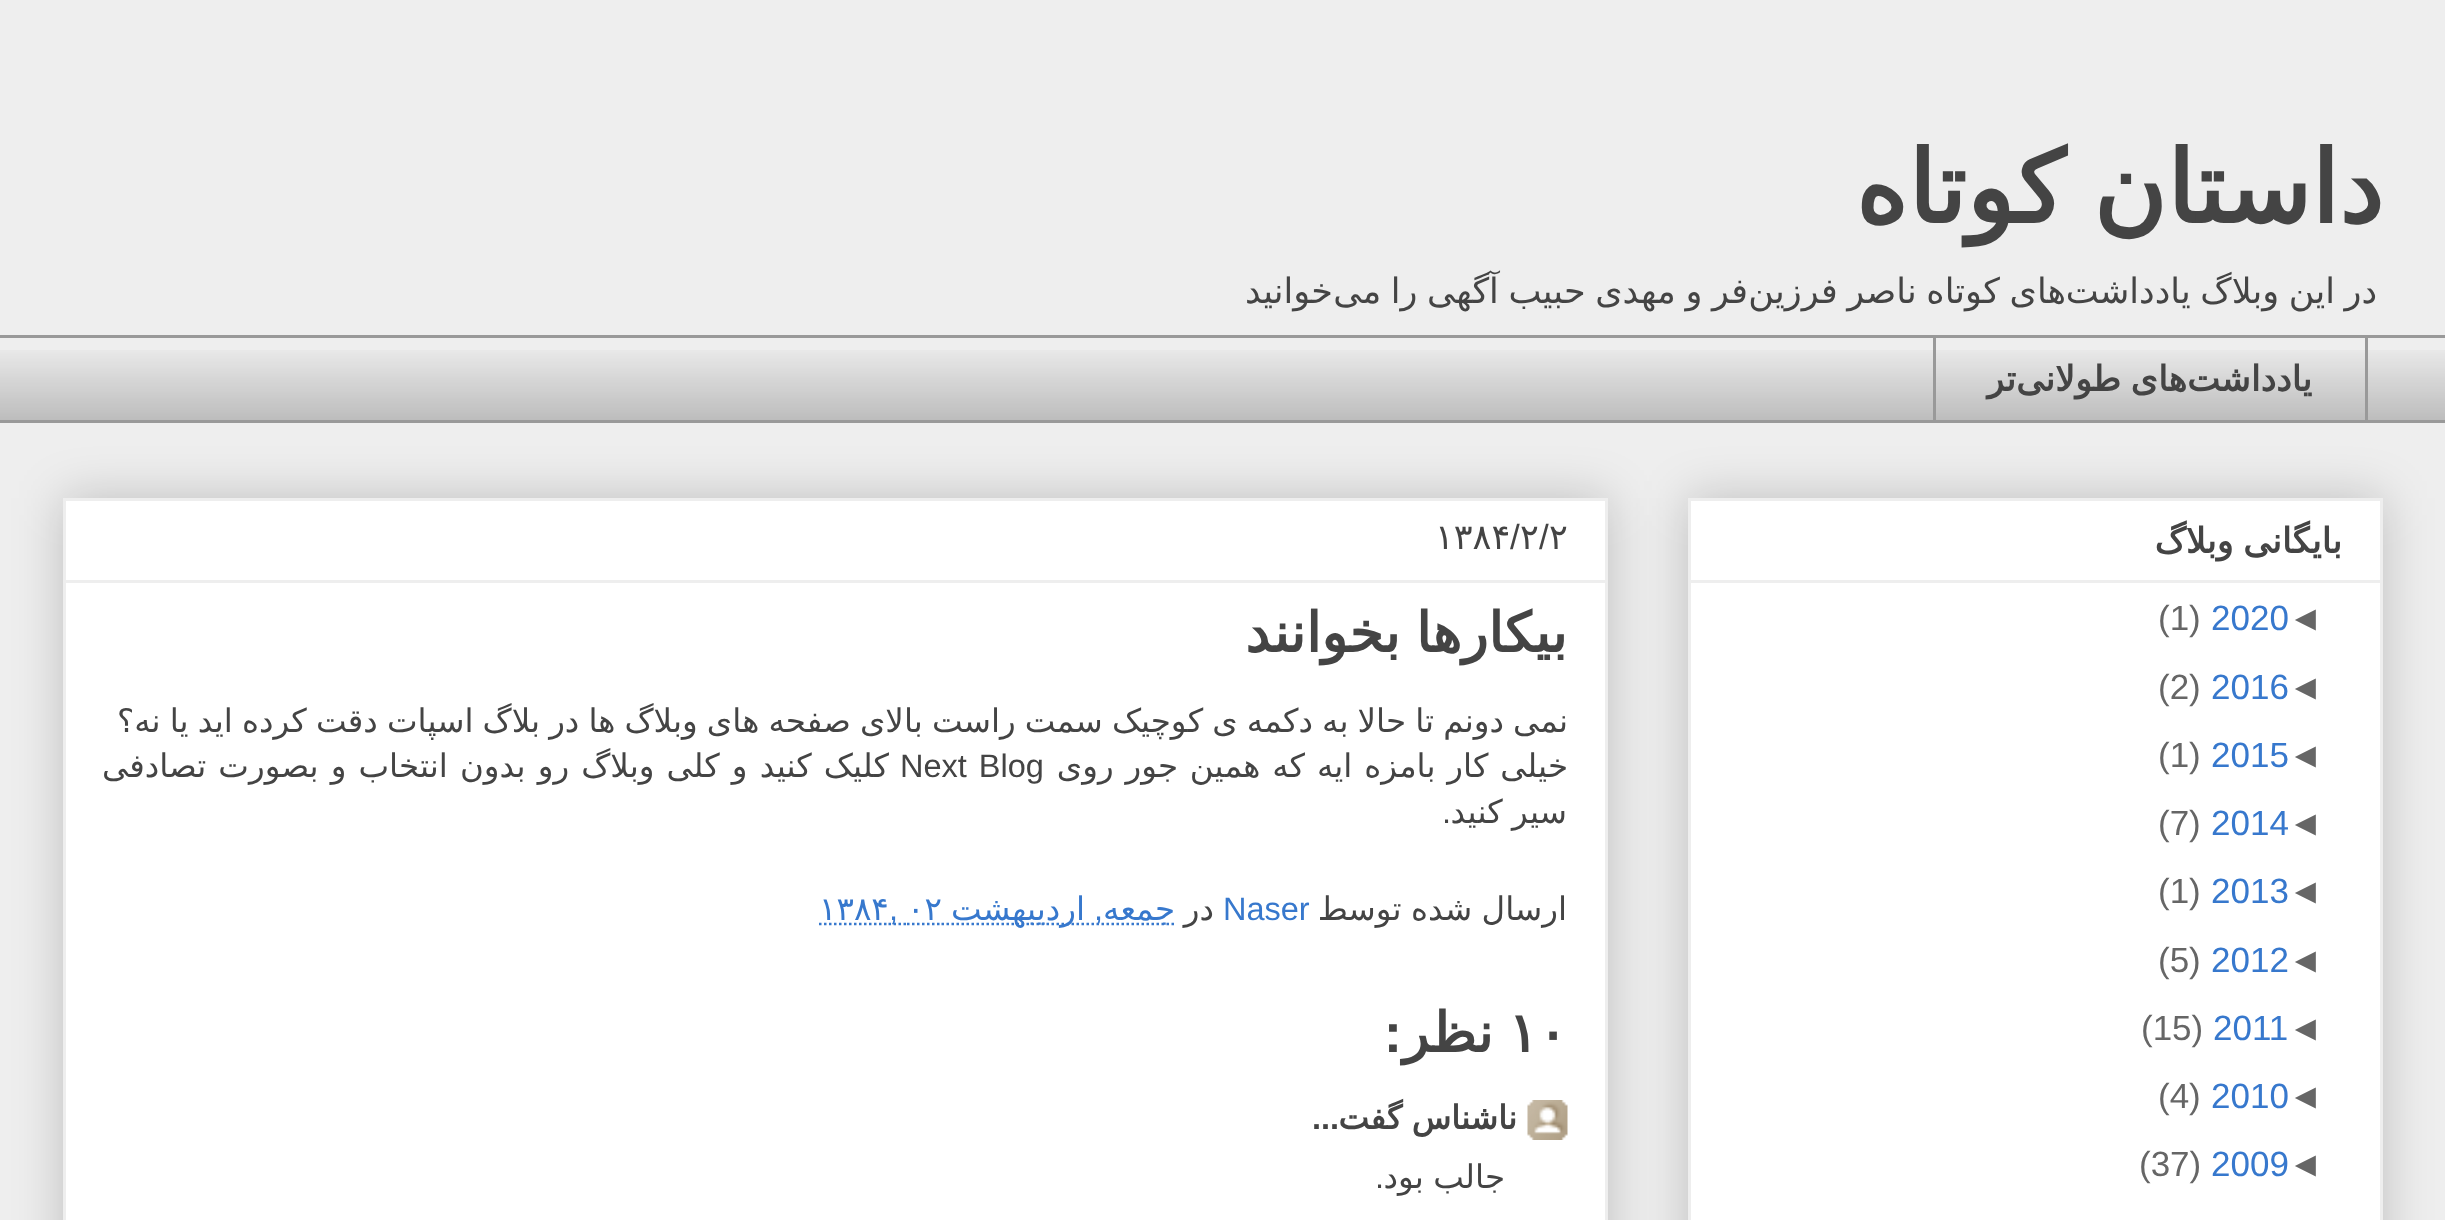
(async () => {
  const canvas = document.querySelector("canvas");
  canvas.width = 2445;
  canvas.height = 1220;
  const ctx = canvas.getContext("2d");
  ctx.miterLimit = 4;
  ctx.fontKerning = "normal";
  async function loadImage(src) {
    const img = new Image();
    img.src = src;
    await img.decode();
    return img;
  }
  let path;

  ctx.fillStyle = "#eeeeee";
  ctx.fillRect(0, 0, 2445, 1220);
  ctx.drawImage(await loadImage("img/1.png"), 0, 350, 2445, 70);
  ctx.fillStyle = "#999999";
  ctx.fillRect(0, 335, 2445, 3);
  ctx.strokeStyle = "#999999";
  ctx.lineWidth = 3;
  ctx.strokeRect(1934.5, 336.5, 432, 85);
  ctx.fillRect(0, 420, 2445, 3);
  ctx.fillStyle = "rgba(0, 0, 0, 0.2)";
  ctx.filter = "blur(25px)";
  ctx.beginPath();
  ctx.rect(1688, 498, 695, 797);
  ctx.fill();
  ctx.filter = "none";
  ctx.fillStyle = "#ffffff";
  ctx.beginPath();
  ctx.rect(1689.5, 499.5, 692, 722);
  ctx.fill();
  ctx.strokeStyle = "#eeeeee";
  ctx.stroke();
  ctx.fillStyle = "#eeeeee";
  ctx.fillRect(1690, 580, 690, 3);
  ctx.fillStyle = "rgba(0, 0, 0, 0.2)";
  ctx.filter = "blur(25px)";
  ctx.beginPath();
  ctx.rect(63, 498, 1545, 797);
  ctx.fill();
  ctx.filter = "none";
  ctx.fillStyle = "#ffffff";
  ctx.beginPath();
  ctx.rect(64.5, 499.5, 1542, 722);
  ctx.fill();
  ctx.stroke();
  ctx.fillStyle = "#eeeeee";
  ctx.fillRect(65, 580, 1540, 3);
  path = new Path2D("M941.5 924H1174.5");
  ctx.strokeStyle = "#3778cd";
  ctx.lineWidth = 2.5;
  ctx.setLineDash([2.5, 2.5]);
  ctx.stroke(path);
  path = new Path2D("M819 924H888.5");
  ctx.stroke(path);
  path = new Path2D("M888.5 924H907");
  ctx.stroke(path);
  path = new Path2D("M907 924H941.5");
  ctx.stroke(path);
  ctx.drawImage(await loadImage("img/2.png"), 1527, 1100, 41, 40);
  ctx.wordSpacing = "-4px";
  ctx.direction = "rtl";
  ctx.font = "bold 100px DejaVu Sans";
  ctx.fillStyle = "#444444";
  ctx.fillText("داستان کوتاه", 2383, 223);
  ctx.wordSpacing = "-1.5px";
  ctx.font = "35px DejaVu Sans";
  for (const [text, x, y] of [
    ["در این وبلاگ یادداشت", 2377, 303],
    ["فر و مهدی حبیب آگهی را می", 1748, 303],
    ["های کوتاه ناصر فرزین", 2066, 303],
  ]) {
    ctx.fillText(text, x, y);
  }
  ctx.wordSpacing = "0px";
  ctx.fillText("خوانید", 1333, 303);
  ctx.font = "bold 35px DejaVu Sans";
  ctx.fillText("یادداشت", 2312, 391);
  ctx.wordSpacing = "-1.5px";
  ctx.fillText("های طولانی", 2187, 391);
  ctx.wordSpacing = "0px";
  ctx.fillText("تر", 2016, 391);
  ctx.wordSpacing = "-1.5px";
  ctx.fillText("بايگانی وبلاگ", 2342, 553);
  ctx.wordSpacing = "0px";
  ctx.direction = "ltr";
  ctx.font = "35px Liberation Sans";
  ctx.fillStyle = "#666666";
  ctx.fillText("◄", 2288, 630);
  ctx.fillStyle = "#3778cd";
  ctx.fillText("2020", 2211, 630);
  ctx.fillStyle = "#666666";
  ctx.fillText("(1)", 2158, 630);
  ctx.fillText("◄", 2288, 699);
  ctx.fillStyle = "#3778cd";
  ctx.fillText("2016", 2211, 699);
  ctx.fillStyle = "#666666";
  ctx.fillText("(2)", 2158, 699);
  ctx.fillText("◄", 2288, 767);
  ctx.fillStyle = "#3778cd";
  ctx.fillText("2015", 2211, 767);
  ctx.fillStyle = "#666666";
  ctx.fillText("(1)", 2158, 767);
  ctx.fillText("◄", 2288, 835);
  ctx.fillStyle = "#3778cd";
  ctx.fillText("2014", 2211, 835);
  ctx.fillStyle = "#666666";
  ctx.fillText("(7)", 2158, 835);
  ctx.fillText("◄", 2288, 903);
  ctx.fillStyle = "#3778cd";
  ctx.fillText("2013", 2211, 903);
  ctx.fillStyle = "#666666";
  ctx.fillText("(1)", 2158, 903);
  ctx.fillText("◄", 2288, 972);
  ctx.fillStyle = "#3778cd";
  ctx.fillText("2012", 2211, 972);
  ctx.fillStyle = "#666666";
  ctx.fillText("(5)", 2158, 972);
  ctx.fillText("◄", 2288, 1040);
  ctx.fillStyle = "#3778cd";
  ctx.fillText("2011", 2213, 1040);
  ctx.fillStyle = "#666666";
  ctx.fillText("(15)", 2141, 1040);
  ctx.fillText("◄", 2288, 1108);
  ctx.fillStyle = "#3778cd";
  ctx.fillText("2010", 2211, 1108);
  ctx.fillStyle = "#666666";
  ctx.fillText("(4)", 2158, 1108);
  ctx.fillText("◄", 2288, 1176);
  ctx.fillStyle = "#3778cd";
  ctx.fillText("2009", 2211, 1176);
  ctx.fillStyle = "#666666";
  ctx.fillText("(37)", 2139, 1176);
  ctx.font = "35px DejaVu Sans";
  ctx.fillStyle = "#444444";
  ctx.fillText("۲", 1549, 549);
  ctx.font = "35px Liberation Sans";
  ctx.fillText("/", 1539, 549);
  ctx.font = "35px DejaVu Sans";
  ctx.fillText("۲", 1520, 549);
  ctx.font = "35px Liberation Sans";
  ctx.fillText("/", 1510, 549);
  ctx.font = "35px DejaVu Sans";
  ctx.fillText("۱۳۸۴", 1435, 549);
  ctx.wordSpacing = "-2px";
  ctx.direction = "rtl";
  ctx.font = "bold 55px DejaVu Sans";
  ctx.fillText("بیکارها بخوانند", 1567, 652);
  ctx.wordSpacing = "-1.25px";
  ctx.font = "32.5px DejaVu Sans";
  ctx.fillText("نمی دونم تا حالا به دکمه ی کوچیک سمت راست بالای صفحه های وبلاگ ها در بلاگ اسپات دقت کرده اید یا نه؟", 1568, 732);
  ctx.wordSpacing = "1.5px";
  ctx.fillText("خیلی کار بامزه ایه که همین جور روی", 1568, 777);
  ctx.wordSpacing = "3px";
  ctx.direction = "ltr";
  ctx.font = "32.5px Liberation Sans";
  ctx.fillText("Next Blog", 900, 777);
  ctx.wordSpacing = "1.75px";
  ctx.direction = "rtl";
  ctx.font = "32.5px DejaVu Sans";
  ctx.fillText("کلیک کنید و کلی وبلاگ رو بدون انتخاب و بصورت تصادفی", 889, 777);
  ctx.wordSpacing = "-1px";
  ctx.fillText("سیر کنید", 1567, 823);
  ctx.wordSpacing = "0px";
  ctx.font = "32.5px Liberation Sans";
  ctx.fillText(".", 1451, 823);
  ctx.wordSpacing = "-1px";
  ctx.font = "32.5px DejaVu Sans";
  ctx.fillText("ارسال شده توسط", 1567, 920);
  ctx.wordSpacing = "0px";
  ctx.direction = "ltr";
  ctx.font = "32.5px Liberation Sans";
  ctx.fillStyle = "#3778cd";
  ctx.fillText("Naser", 1223, 920);
  ctx.direction = "rtl";
  ctx.font = "32.5px DejaVu Sans";
  ctx.fillStyle = "#444444";
  ctx.fillText("در", 1214, 920);
  ctx.fillStyle = "#3778cd";
  ctx.fillText("جمعه", 1175, 920);
  ctx.font = "32.5px Liberation Sans";
  ctx.fillText(",", 1103, 920);
  ctx.font = "32.5px DejaVu Sans";
  ctx.fillText("اردیبهشت", 1085, 920);
  ctx.direction = "ltr";
  ctx.fillText("۰۲", 907, 920);
  ctx.font = "32.5px Liberation Sans";
  ctx.fillText(",", 889, 920);
  ctx.font = "32.5px DejaVu Sans";
  ctx.fillText("۱۳۸۴", 819, 920);
  ctx.font = "bold 55px DejaVu Sans";
  ctx.fillStyle = "#444444";
  ctx.fillText("۱۰", 1508, 1052);
  ctx.direction = "rtl";
  ctx.fillText("نظر", 1493, 1052);
  ctx.font = "bold 55px Liberation Sans";
  ctx.fillText(":", 1402, 1052);
  ctx.wordSpacing = "-1px";
  ctx.font = "bold 32.5px DejaVu Sans";
  ctx.fillText("ناشناس گفت", 1517, 1129);
  ctx.wordSpacing = "0px";
  ctx.font = "bold 32.5px Liberation Sans";
  ctx.fillText("...", 1339, 1129);
  ctx.wordSpacing = "-1px";
  ctx.font = "32.5px DejaVu Sans";
  ctx.fillText("جالب بود", 1505, 1188);
  ctx.wordSpacing = "0px";
  ctx.font = "32.5px Liberation Sans";
  ctx.fillText(".", 1384, 1188);
})();
